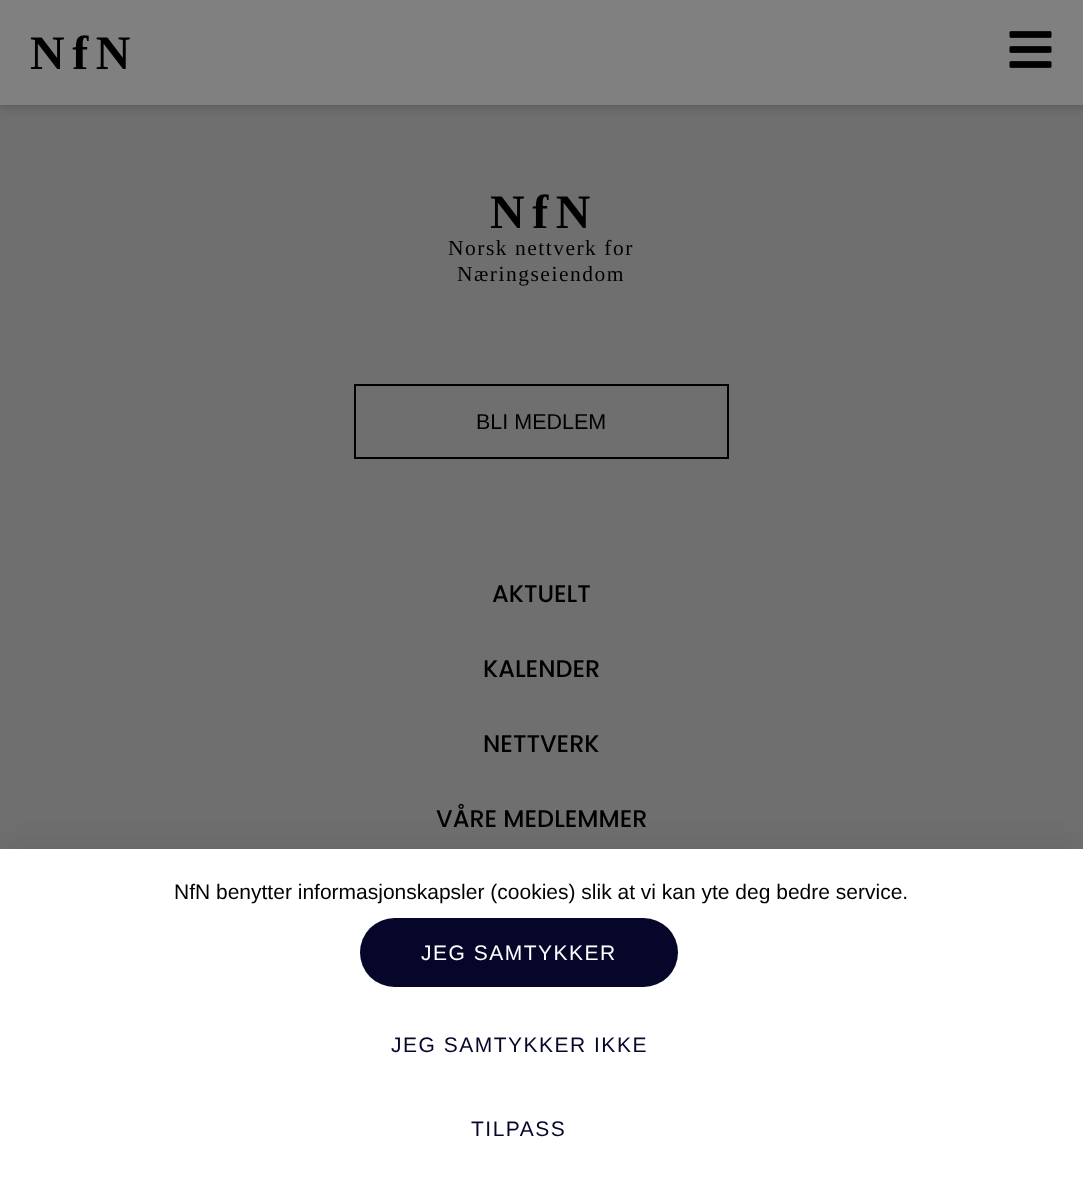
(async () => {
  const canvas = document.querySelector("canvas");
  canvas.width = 1083;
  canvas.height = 1200;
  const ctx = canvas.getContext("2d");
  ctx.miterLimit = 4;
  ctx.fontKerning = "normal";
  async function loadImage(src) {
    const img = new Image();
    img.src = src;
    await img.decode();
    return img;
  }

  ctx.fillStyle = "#6f6f6f";
  ctx.fillRect(0, 0, 1083, 1200);
  ctx.fillStyle = "rgba(17, 17, 17, 0.2)";
  ctx.filter = "blur(4px)";
  ctx.beginPath();
  ctx.rect(-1, 0, 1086, 108);
  ctx.fill();
  ctx.filter = "none";
  ctx.fillStyle = "#808080";
  ctx.fillRect(0, 0, 1083, 105);
  ctx.drawImage(await loadImage("img/1.png"), 1009, 31, 43, 37);
  ctx.strokeStyle = "#000000";
  ctx.lineWidth = 2;
  ctx.strokeRect(355, 385, 373, 73);
  ctx.fillStyle = "rgba(0, 0, 0, 0.1)";
  ctx.filter = "blur(15px)";
  ctx.beginPath();
  ctx.rect(0, 849, 1083, 351);
  ctx.fill();
  ctx.filter = "none";
  ctx.fillStyle = "#ffffff";
  ctx.fillRect(0, 849, 1083, 351);
  ctx.fillStyle = "#06062b";
  ctx.beginPath();
  ctx.roundRect(360, 918, 318, 69, 34.5);
  ctx.fill();
  ctx.letterSpacing = "7.5px";
  ctx.font = "bold 48px Liberation Serif";
  ctx.fillStyle = "#000000";
  ctx.fillText("NfN", 30, 69);
  ctx.fillText("NfN", 490, 228);
  ctx.letterSpacing = "1.5px";
  ctx.font = "21.5px Liberation Serif";
  ctx.fillText("Norsk nettverk for", 448, 255);
  ctx.fillText("Næringseiendom", 457, 281);
  ctx.letterSpacing = "0px";
  ctx.font = "21.5px Liberation Sans";
  ctx.fillText("BLI MEDLEM", 476, 429);
  ctx.font = "500 24px Poppins";
  for (const [text, x, y] of [
    ["AKTUELT", 492, 602],
    ["KALENDER", 483, 677],
    ["NETTVERK", 483, 752],
    ["VÅRE MEDLEMMER", 436, 827],
  ]) {
    ctx.fillText(text, x, y);
  }
  ctx.font = "21px Liberation Sans";
  ctx.fillText("NfN benytter informasjonskapsler (cookies) slik at vi kan yte deg bedre service.", 174, 899);
  ctx.letterSpacing = "1.5px";
  ctx.fillStyle = "#ffffff";
  ctx.fillText("JEG SAMTYKKER", 421, 960);
  ctx.fillStyle = "#06062b";
  ctx.fillText("JEG SAMTYKKER IKKE", 391, 1052);
  ctx.fillText("TILPASS", 471, 1136);
})();
